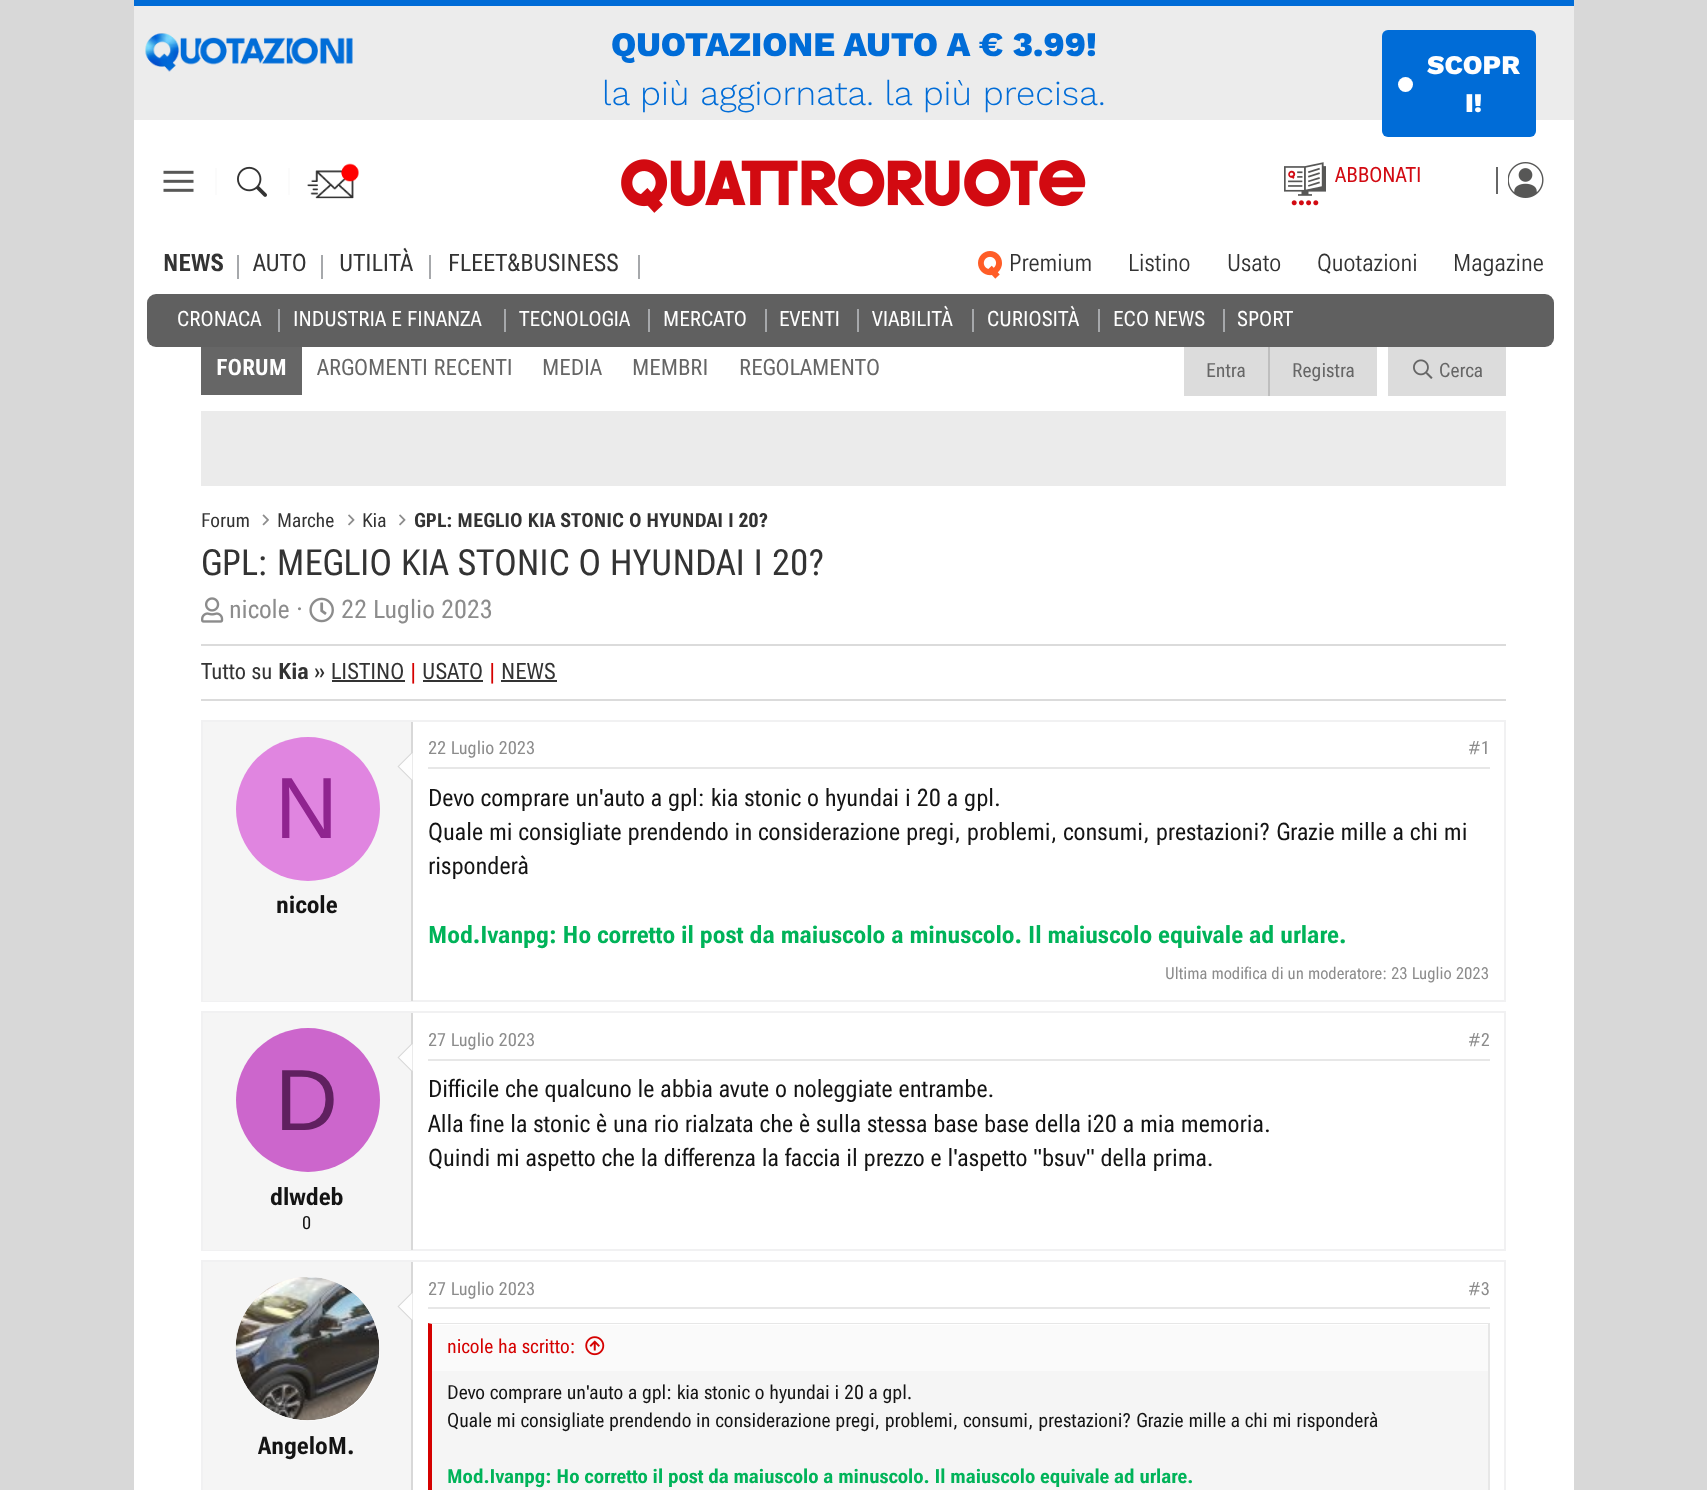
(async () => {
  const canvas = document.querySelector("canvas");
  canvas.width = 1707;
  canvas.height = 1490;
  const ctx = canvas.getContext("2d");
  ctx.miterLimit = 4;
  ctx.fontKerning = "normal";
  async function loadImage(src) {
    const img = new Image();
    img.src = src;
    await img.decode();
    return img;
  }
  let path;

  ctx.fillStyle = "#d8d8d8";
  ctx.fillRect(0, 0, 1707, 1490);
  for (const [x, y, w, h, color] of [
    [134, 120, 1440, 1370, "#ffffff"],
    [134, 6, 1440, 114, "#ececec"],
    [134, 0, 1440, 6, "#006cd7"],
  ]) {
    ctx.fillStyle = color;
    ctx.fillRect(x, y, w, h);
  }
  ctx.drawImage(await loadImage("img/1.png"), 145, 33, 208, 39);
  ctx.beginPath();
  ctx.roundRect(1382, 30, 154, 107, 6);
  ctx.fill();
  ctx.fillStyle = "#ffffff";
  ctx.beginPath();
  ctx.arc(1405.5, 84.5, 7.5, 0, Math.PI * 2);
  ctx.fill();
  ctx.drawImage(await loadImage("img/2.png"), 163, 170, 31, 22);
  ctx.drawImage(await loadImage("img/3.png"), 307, 163, 52, 36);
  ctx.drawImage(await loadImage("img/4.png"), 621, 159, 465, 54);
  ctx.fillStyle = "#fbfbfb";
  ctx.fillRect(215, 168, 2, 27);
  ctx.drawImage(await loadImage("img/5.png"), 237, 166, 30, 31);
  ctx.fillRect(288, 168, 2, 27);
  ctx.drawImage(await loadImage("img/6.png"), 1284, 162, 42, 44);
  ctx.fillStyle = "#666666";
  ctx.fillRect(1496, 167, 2, 27);
  ctx.drawImage(await loadImage("img/7.png"), 1508, 162, 36, 36);
  for (const [x, y, w, h, color] of [
    [429, 255, 2, 24, "#a6a8ab"],
    [237, 255, 2, 24, "#a6a8ab"],
    [1184, 347, 193, 49, "#dcdcdc"],
    [1268, 341, 2, 55, "#bebebe"],
  ]) {
    ctx.fillStyle = color;
    ctx.fillRect(x, y, w, h);
  }
  ctx.fillStyle = "#606060";
  ctx.beginPath();
  ctx.roundRect(147, 294, 1407, 53, 9);
  ctx.fill();
  for (const [x, y, w, h, color] of [
    [278, 309, 2, 23, "#a6a8ab"],
    [504, 309, 2, 23, "#a6a8ab"],
    [648, 309, 2, 23, "#a6a8ab"],
    [765, 309, 2, 23, "#a6a8ab"],
    [857, 309, 2, 23, "#a6a8ab"],
    [972, 309, 2, 23, "#a6a8ab"],
    [1098, 309, 2, 23, "#a6a8ab"],
    [1223, 309, 2, 23, "#a6a8ab"],
    [321, 255, 2, 24, "#a6a8ab"],
    [638, 255, 2, 24, "#a6a8ab"],
  ]) {
    ctx.fillStyle = color;
    ctx.fillRect(x, y, w, h);
  }
  ctx.drawImage(await loadImage("img/8.png"), 978, 251, 24, 28);
  ctx.fillStyle = "#666666";
  ctx.fillRect(201, 347, 101, 48);
  ctx.fillStyle = "#dcdcdc";
  ctx.fillRect(1388, 347, 118, 49);
  ctx.drawImage(await loadImage("img/9.png"), 1413, 359, 20, 20);
  ctx.fillStyle = "#ebebeb";
  ctx.fillRect(201, 411, 1305, 75);
  ctx.drawImage(await loadImage("img/10.png"), 262, 514, 7, 12);
  ctx.drawImage(await loadImage("img/11.png"), 348, 514, 7, 12);
  ctx.drawImage(await loadImage("img/11.png"), 399, 514, 7, 12);
  ctx.drawImage(await loadImage("img/12.png"), 201, 597, 23, 26);
  ctx.drawImage(await loadImage("img/13.png"), 309, 597, 25, 26);
  for (const [x, y, w, h, color] of [
    [201, 644, 1305, 2, "#dbdbdb"],
    [201, 699, 1305, 2, "#dbdbdb"],
    [332, 680, 73, 2, "#333333"],
    [423, 680, 60, 2, "#333333"],
    [501, 680, 56, 2, "#333333"],
  ]) {
    ctx.fillStyle = color;
    ctx.fillRect(x, y, w, h);
  }
  ctx.strokeStyle = "#f1f1f2";
  ctx.lineWidth = 2;
  ctx.strokeRect(202, 721, 1303, 280);
  ctx.fillStyle = "#f5f5f5";
  ctx.fillRect(203, 722, 208, 279);
  ctx.fillStyle = "#d8d8d8";
  ctx.fillRect(411, 722, 2, 279);
  path = new Path2D("M412.5 751.5V781.5L397.5 766.5Z");
  ctx.fill(path);
  ctx.fillStyle = "#fefefe";
  path = new Path2D("M412.5 753V780L399 766.5Z");
  ctx.fill(path);
  ctx.fillStyle = "#e085e0";
  ctx.beginPath();
  ctx.arc(308, 809, 72, 0, Math.PI * 2);
  ctx.fill();
  ctx.fillStyle = "#e7e7e7";
  ctx.fillRect(428, 767, 1062, 2);
  ctx.strokeRect(202, 1012, 1303, 238);
  ctx.fillStyle = "#f5f5f5";
  ctx.fillRect(203, 1013, 208, 237);
  ctx.fillStyle = "#d8d8d8";
  ctx.fillRect(411, 1013, 2, 237);
  path = new Path2D("M412.5 1042.5V1072.5L397.5 1057.5Z");
  ctx.fill(path);
  ctx.fillStyle = "#fefefe";
  path = new Path2D("M412.5 1044V1071L399 1057.5Z");
  ctx.fill(path);
  ctx.fillStyle = "#cc66cc";
  ctx.beginPath();
  ctx.arc(308, 1100, 72, 0, Math.PI * 2);
  ctx.fill();
  ctx.fillStyle = "#e7e7e7";
  ctx.fillRect(428, 1059, 1062, 2);
  ctx.strokeRect(202, 1261, 1303, 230);
  ctx.fillStyle = "#f5f5f5";
  ctx.fillRect(203, 1262, 208, 228);
  ctx.fillStyle = "#d8d8d8";
  ctx.fillRect(411, 1262, 2, 228);
  ctx.fillStyle = "#fefefe";
  ctx.beginPath();
  ctx.arc(308, 1349, 72, 0, Math.PI * 2);
  ctx.fill();
  ctx.drawImage(await loadImage("img/14.png"), 235, 1277, 145, 144);
  ctx.fillStyle = "#d8d8d8";
  path = new Path2D("M412.5 1291.5V1321.5L397.5 1306.5Z");
  ctx.fill(path);
  ctx.fillStyle = "#fefefe";
  path = new Path2D("M412.5 1293V1320L399 1306.5Z");
  ctx.fill(path);
  ctx.fillStyle = "#e7e7e7";
  ctx.fillRect(428, 1307, 1062, 2);
  ctx.fillStyle = "#f5f5f5";
  ctx.fillRect(432, 1371, 1056, 119);
  ctx.fillStyle = "#e7e7e7";
  path = new Path2D("M428 1323H1490L1488 1324H432Z");
  ctx.fill(path);
  ctx.fillRect(1488, 1323, 2, 167);
  ctx.fillStyle = "#d50100";
  path = new Path2D("M428 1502V1323L432 1324V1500Z");
  ctx.fill(path);
  ctx.fillStyle = "#fafafa";
  ctx.fillRect(432, 1325, 1056, 46);
  ctx.drawImage(await loadImage("img/15.png"), 585, 1336, 20, 20);
  ctx.font = "800 34.5px Work Sans";
  ctx.fillStyle = "#006cd7";
  ctx.fillText("QUOTAZIONE AUTO A € 3.99!", 611, 56);
  ctx.font = "300 34.5px Work Sans";
  ctx.fillText("la più aggiornata. la più precisa.", 602, 105);
  ctx.font = "800 27px Work Sans";
  ctx.fillStyle = "#fefefe";
  ctx.fillText("SCOPR", 1427, 74);
  ctx.fillText("I!", 1465, 112);
  ctx.font = "21px Roboto Flex";
  ctx.fillStyle = "#d20a12";
  ctx.fillText("ABBONATI", 1335, 182);
  ctx.font = "24px Roboto Flex";
  ctx.fillStyle = "#333333";
  ctx.fillText("UTILITÀ", 339, 271);
  ctx.font = "bold 24px Roboto Flex";
  ctx.fillText("NEWS", 163, 271);
  ctx.font = "21px Roboto Flex";
  ctx.fillStyle = "#fefefe";
  for (const [text, x, y] of [
    ["CRONACA", 177, 326],
    ["INDUSTRIA E FINANZA", 293, 326],
    ["TECNOLOGIA", 519, 326],
    ["MERCATO", 663, 326],
    ["EVENTI", 779, 326],
    ["VIABILITÀ", 872, 326],
    ["CURIOSITÀ", 987, 326],
    ["ECO NEWS", 1113, 326],
    ["SPORT", 1237, 326],
  ]) {
    ctx.fillText(text, x, y);
  }
  ctx.font = "24px Roboto Flex";
  ctx.fillStyle = "#333333";
  ctx.fillText("AUTO", 253, 271);
  ctx.fillText("FLEET&BUSINESS", 448, 271);
  ctx.font = "300 24px Roboto Flex";
  for (const [text, x, y] of [
    ["Premium", 1009, 271],
    ["Listino", 1128, 271],
    ["Usato", 1227, 271],
    ["Quotazioni", 1317, 271],
    ["Magazine", 1453, 271],
  ]) {
    ctx.fillText(text, x, y);
  }
  ctx.font = "bold 22.5px Roboto Flex";
  ctx.fillStyle = "#fefefe";
  ctx.fillText("FORUM", 216, 375);
  ctx.font = "22.5px Roboto Flex";
  ctx.fillStyle = "#666666";
  for (const [text, x, y] of [
    ["ARGOMENTI RECENTI", 317, 375],
    ["MEDIA", 542, 375],
    ["MEMBRI", 632, 375],
    ["REGOLAMENTO", 739, 375],
  ]) {
    ctx.fillText(text, x, y);
  }
  ctx.font = "19.5px Roboto Flex";
  for (const [text, x, y] of [
    ["Entra", 1206, 377],
    ["Registra", 1292, 377],
    ["Cerca", 1439, 377],
  ]) {
    ctx.fillText(text, x, y);
  }
  ctx.fillStyle = "#333333";
  for (const [text, x, y] of [
    ["Forum", 201, 527],
    ["Marche", 277, 527],
    ["Kia", 362, 527],
  ]) {
    ctx.fillText(text, x, y);
  }
  ctx.font = "bold 19.5px Roboto Flex";
  ctx.fillText("GPL: MEGLIO KIA STONIC O HYUNDAI I 20?", 414, 527);
  ctx.font = "36px Roboto Flex";
  ctx.fillText("GPL: MEGLIO KIA STONIC O HYUNDAI I 20?", 201, 575);
  ctx.font = "25.5px Roboto Flex";
  ctx.fillStyle = "#8c8c8c";
  ctx.fillText("nicole ·", 229, 618);
  ctx.fillText("22 Luglio 2023", 341, 618);
  ctx.font = "22.5px Roboto Flex";
  ctx.fillStyle = "#333333";
  ctx.fillText("Tutto su", 201, 679);
  ctx.font = "bold 22.5px Roboto Flex";
  ctx.fillText("Kia", 278, 679);
  ctx.font = "22.5px Roboto Flex";
  ctx.fillText("» LISTINO", 314, 679);
  ctx.fillStyle = "#d50100";
  ctx.fillText("|", 410, 679);
  ctx.fillStyle = "#333333";
  ctx.fillText("USATO", 422, 679);
  ctx.fillStyle = "#d50100";
  ctx.fillText("|", 489, 679);
  ctx.fillStyle = "#333333";
  ctx.fillText("NEWS", 501, 679);
  ctx.font = "87px Liberation Sans";
  ctx.fillStyle = "#8f248f";
  ctx.fillText("N", 275, 838);
  ctx.font = "bold 24px Roboto Flex";
  ctx.fillStyle = "#141414";
  ctx.fillText("nicole", 276, 913);
  ctx.font = "18px Roboto Flex";
  ctx.fillStyle = "#8c8c8c";
  ctx.fillText("22 Luglio 2023", 428, 754);
  ctx.fillText("#1", 1468, 754);
  ctx.font = "24px Roboto Flex";
  ctx.fillStyle = "#141414";
  for (const [text, x, y] of [
    ["Devo comprare un'auto a gpl: kia stonic o hyundai i 20 a gpl.", 428, 806],
    ["Quale mi consigliate prendendo in considerazione pregi, problemi, consumi, prestazioni? Grazie mille a chi mi", 428, 840],
    ["risponderà", 428, 874],
  ]) {
    ctx.fillText(text, x, y);
  }
  ctx.font = "bold 24px Roboto Flex";
  ctx.fillStyle = "#00b359";
  ctx.fillText("Mod.Ivanpg: Ho corretto il post da maiuscolo a minuscolo. Il maiuscolo equivale ad urlare.", 428, 943);
  ctx.font = "16.5px Roboto Flex";
  ctx.fillStyle = "#8c8c8c";
  ctx.fillText("Ultima modifica di un moderatore: 23 Luglio 2023", 1165, 979);
  ctx.font = "87px Liberation Sans";
  ctx.fillStyle = "#602060";
  ctx.fillText("D", 275, 1130);
  ctx.font = "bold 24px Roboto Flex";
  ctx.fillStyle = "#141414";
  ctx.fillText("dlwdeb", 270, 1205);
  ctx.font = "18px Roboto Flex";
  ctx.fillText("0", 302, 1229);
  ctx.fillStyle = "#8c8c8c";
  ctx.fillText("27 Luglio 2023", 428, 1046);
  ctx.fillText("#2", 1468, 1046);
  ctx.font = "24px Roboto Flex";
  ctx.fillStyle = "#141414";
  for (const [text, x, y] of [
    ["Difficile che qualcuno le abbia avute o noleggiate entrambe.", 428, 1097],
    ["Alla fine la stonic è una rio rialzata che è sulla stessa base base della i20 a mia memoria.", 428, 1132],
    ["Quindi mi aspetto che la differenza la faccia il prezzo e l'aspetto \"bsuv\" della prima.", 428, 1166],
  ]) {
    ctx.fillText(text, x, y);
  }
  ctx.font = "bold 24px Roboto Flex";
  ctx.fillText("AngeloM.", 258, 1454);
  ctx.font = "18px Roboto Flex";
  ctx.fillStyle = "#8c8c8c";
  ctx.fillText("27 Luglio 2023", 428, 1295);
  ctx.fillText("#3", 1468, 1295);
  ctx.font = "19.5px Roboto Flex";
  ctx.fillStyle = "#d50100";
  ctx.fillText("nicole ha scritto:", 447, 1353);
  ctx.fillStyle = "#141414";
  ctx.fillText("Devo comprare un'auto a gpl: kia stonic o hyundai i 20 a gpl.", 447, 1399);
  ctx.fillText("Quale mi consigliate prendendo in considerazione pregi, problemi, consumi, prestazioni? Grazie mille a chi mi risponderà", 447, 1427);
  ctx.font = "bold 19.5px Roboto Flex";
  ctx.fillStyle = "#00b359";
  ctx.fillText("Mod.Ivanpg: Ho corretto il post da maiuscolo a minuscolo. Il maiuscolo equivale ad urlare.", 447, 1483);
})();
